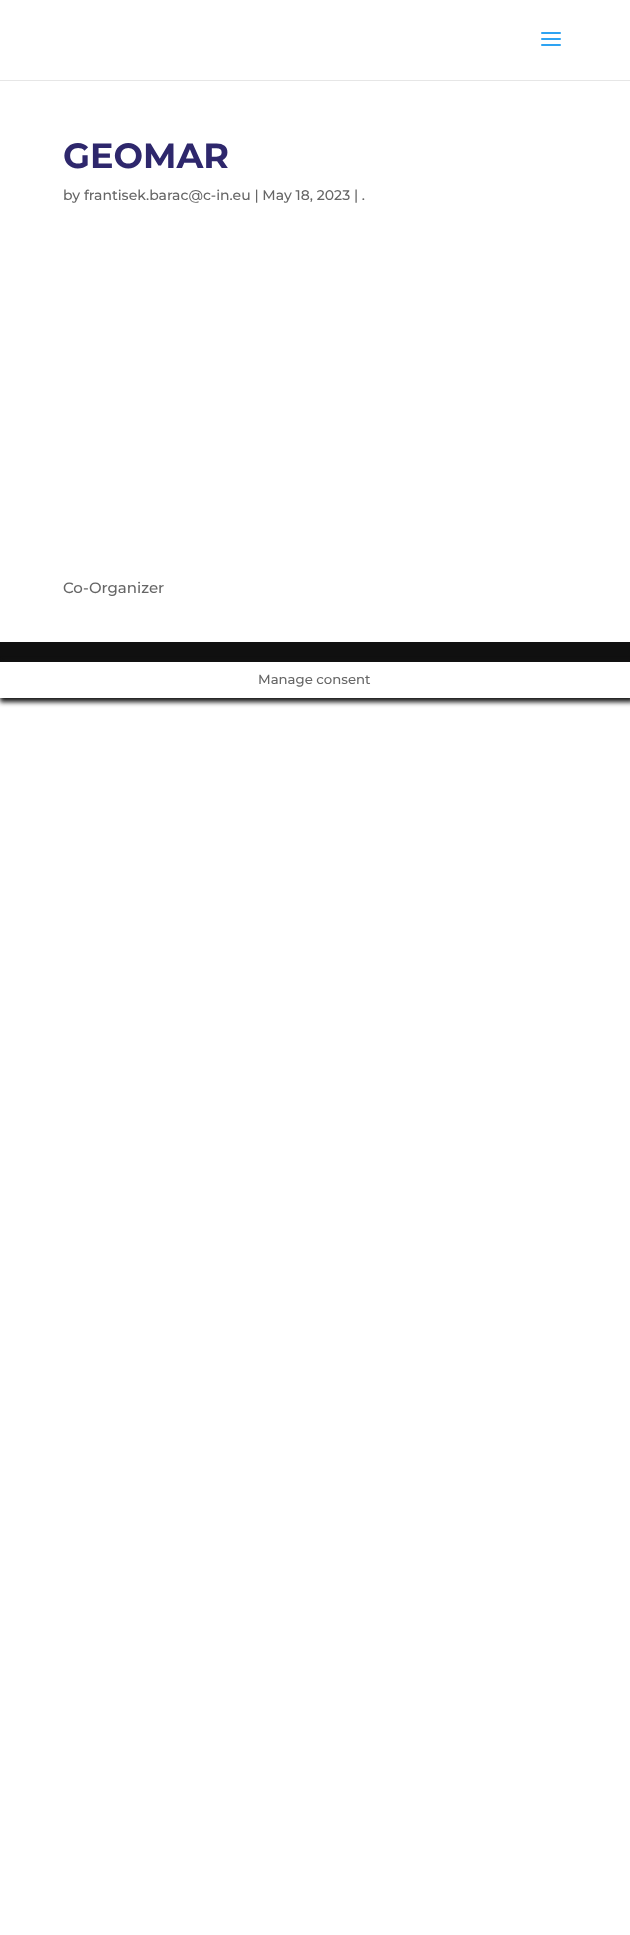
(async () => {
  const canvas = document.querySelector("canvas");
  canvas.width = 630;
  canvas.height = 1935;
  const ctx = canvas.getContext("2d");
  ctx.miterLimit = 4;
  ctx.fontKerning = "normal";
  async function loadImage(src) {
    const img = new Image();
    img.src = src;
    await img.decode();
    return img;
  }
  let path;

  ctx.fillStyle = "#ffffff";
  ctx.fillRect(0, 0, 630, 1935);
  ctx.fillStyle = "#e6e6e6";
  ctx.fillRect(0, 80, 630, 1);
  ctx.drawImage(await loadImage("img/1.png"), 541, 32, 20, 14);
  ctx.fillStyle = "#101010";
  ctx.fillRect(0, 642, 630, 20);
  ctx.save();
  path = new Path2D("M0 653H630V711H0ZM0 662H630V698H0Z");
  ctx.clip(path, "evenodd");
  ctx.fillStyle = "#161616";
  ctx.filter = "blur(2.5px)";
  ctx.beginPath();
  ctx.rect(0, 662, 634, 40);
  ctx.fill();
  ctx.filter = "none";
  ctx.restore();
  ctx.font = "100 35px 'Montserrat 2'";
  ctx.fillStyle = "#2e276c";
  ctx.fillText("GEOMAR", 63, 168);
  ctx.font = "100 14px Montserrat";
  ctx.fillStyle = "#666666";
  ctx.fillText("by frantisek.barac@c-in.eu | May 18, 2023 | .", 63, 200);
  ctx.font = "100 15px Montserrat";
  ctx.fillText("Co-Organizer", 63, 593);
  ctx.font = "100 13.25px Montserrat";
  ctx.fillText("Manage consent", 258, 684);
})();
